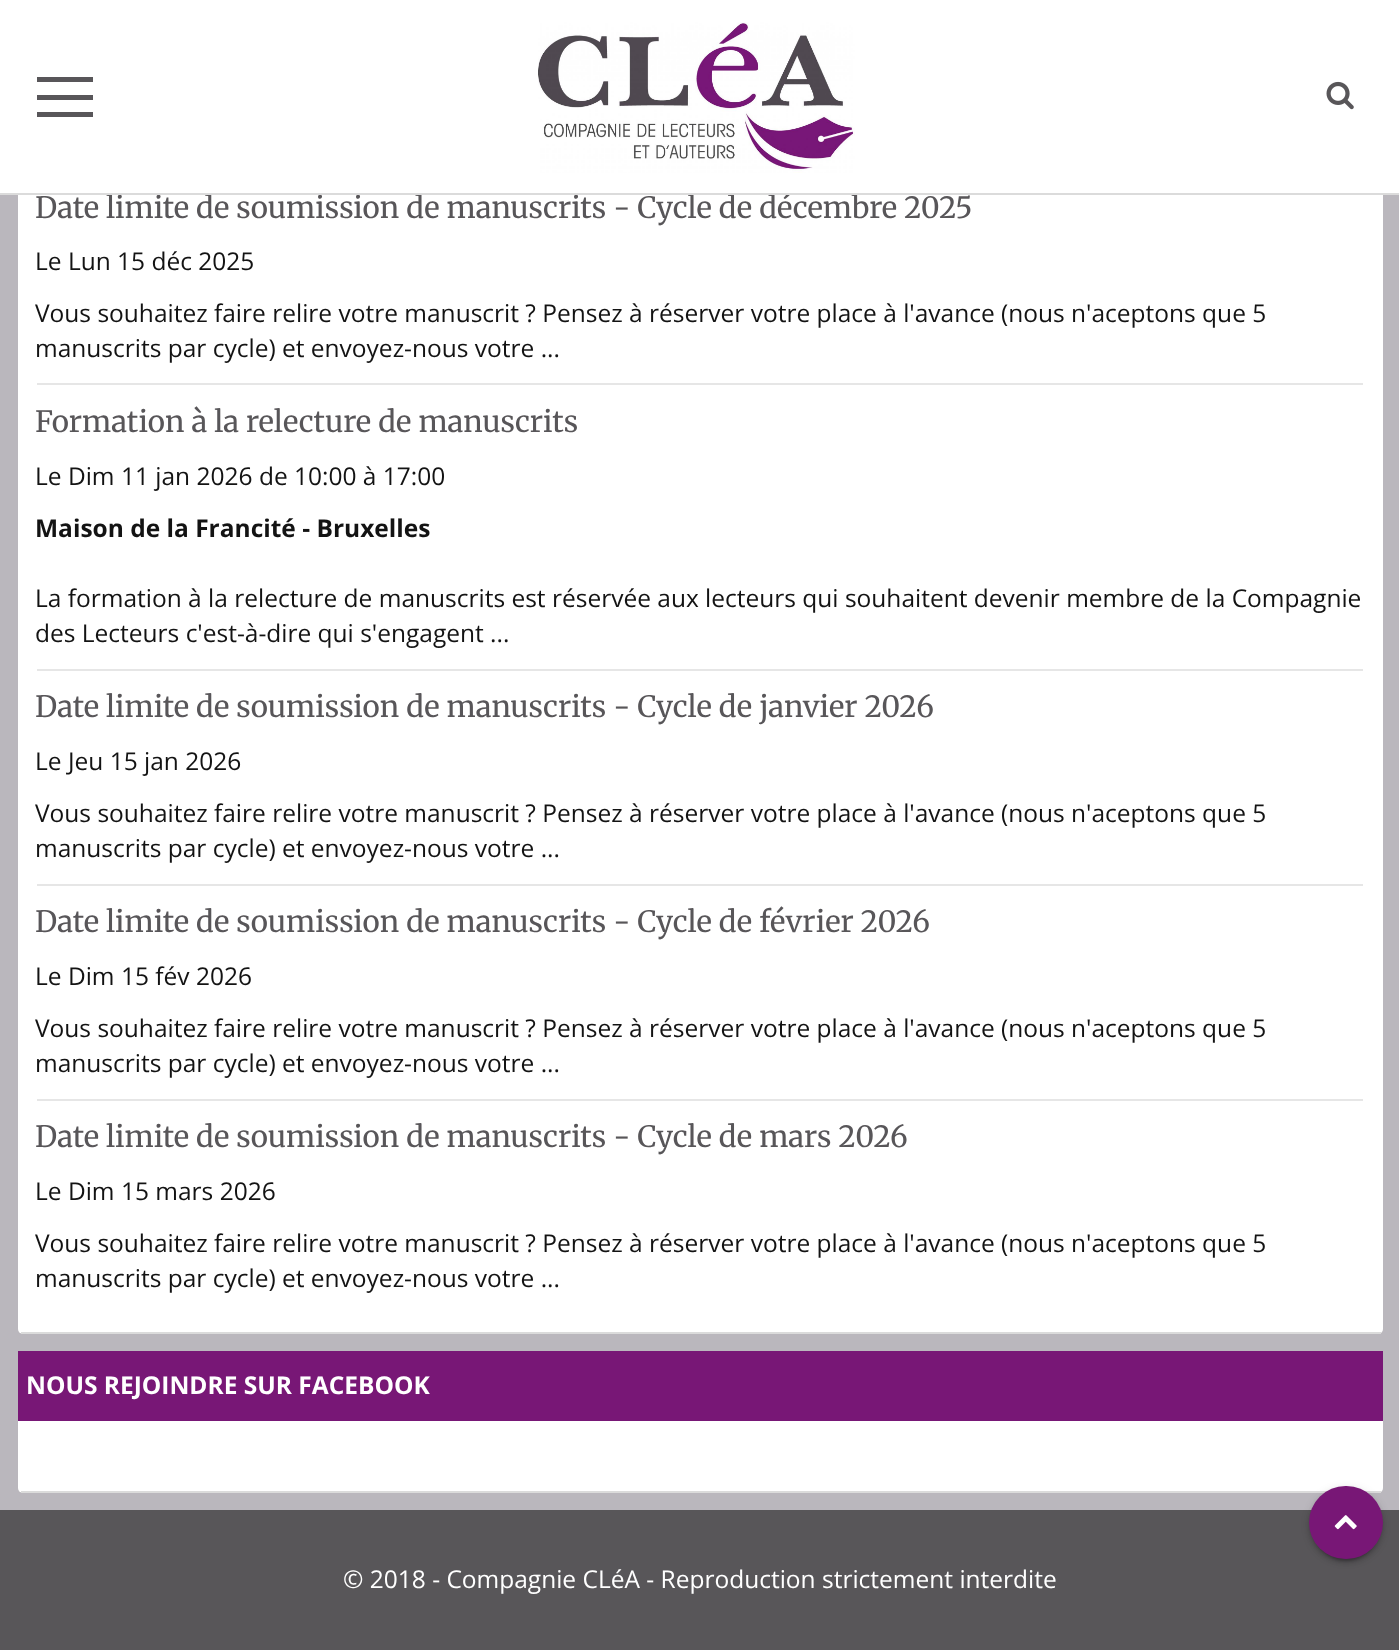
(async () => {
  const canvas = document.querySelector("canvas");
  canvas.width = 1399;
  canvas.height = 1650;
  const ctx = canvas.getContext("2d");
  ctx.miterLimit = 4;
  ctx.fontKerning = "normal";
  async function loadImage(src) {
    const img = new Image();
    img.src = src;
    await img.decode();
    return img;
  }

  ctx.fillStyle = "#585659";
  ctx.fillRect(0, 0, 1399, 1650);
  ctx.fillStyle = "#bab7bd";
  ctx.fillRect(0, 195, 1399, 1315);
  ctx.fillStyle = "#ffffff";
  ctx.beginPath();
  ctx.roundRect(18, 100, 1365, 1234, 5);
  ctx.fill();
  for (const [x, y, w, h, color] of [
    [21, 1332, 1360, 2, "#dbdbdb"],
    [37, 383, 1326, 2, "#e6e6e6"],
    [37, 669, 1326, 2, "#e6e6e6"],
    [37, 884, 1326, 2, "#e6e6e6"],
    [37, 1099, 1326, 2, "#e6e6e6"],
  ]) {
    ctx.fillStyle = color;
    ctx.fillRect(x, y, w, h);
  }
  ctx.fillStyle = "#ffffff";
  ctx.beginPath();
  ctx.roundRect(18, 1351, 1365, 142, 5);
  ctx.fill();
  ctx.fillStyle = "#dbdbdb";
  ctx.fillRect(21, 1491, 1360, 2);
  ctx.fillStyle = "#781776";
  ctx.fillRect(18, 1351, 1365, 70);
  ctx.fillStyle = "rgba(0, 0, 0, 0.12)";
  ctx.filter = "blur(4.5px)";
  ctx.beginPath();
  ctx.roundRect(1309, 1488, 74, 73, 36.5);
  ctx.fill();
  ctx.filter = "none";
  ctx.fillStyle = "rgba(0, 0, 0, 0.2)";
  ctx.filter = "blur(1px)";
  ctx.beginPath();
  ctx.roundRect(1313, 1495, 66, 66, 33);
  ctx.fill();
  ctx.filter = "none";
  ctx.fillStyle = "rgba(0, 0, 0, 0.14)";
  ctx.filter = "blur(2px)";
  ctx.beginPath();
  ctx.roundRect(1309, 1489, 74, 74, 37);
  ctx.fill();
  ctx.filter = "none";
  ctx.fillStyle = "#781776";
  ctx.beginPath();
  ctx.roundRect(1309, 1486, 74, 73, 36.5);
  ctx.fill();
  ctx.drawImage(await loadImage("img/3.png"), 1334, 1515, 23, 15);
  ctx.font = "29.4px Merriweather";
  ctx.fillStyle = "#585659";
  ctx.fillText("Date limite de soumission de manuscrits - Cycle de décembre 2025", 35, 218);
  ctx.fillStyle = "#ffffff";
  ctx.fillRect(0, 0, 1399, 193);
  ctx.drawImage(await loadImage("img/2.png"), 1326, 81, 28, 29);
  ctx.drawImage(await loadImage("img/1.png"), 538, 22, 317, 151);
  for (const [x, y, w, h, color] of [
    [37, 112, 56, 5, "#585659"],
    [37, 77, 56, 5, "#585659"],
    [37, 95, 56, 5, "#585659"],
    [0, 193, 1399, 2, "#dbdbdb"],
  ]) {
    ctx.fillStyle = color;
    ctx.fillRect(x, y, w, h);
  }
  ctx.font = "24.5px Open Sans";
  ctx.fillStyle = "#131313";
  for (const [text, x, y] of [
    ["Le Lun 15 déc 2025", 35, 270],
    ["Vous souhaitez faire relire votre manuscrit ? Pensez à réserver votre place à l'avance (nous n'aceptons que 5", 35, 322],
    ["manuscrits par cycle) et envoyez-nous votre ...", 35, 357],
  ]) {
    ctx.fillText(text, x, y);
  }
  ctx.font = "29.4px Merriweather";
  ctx.fillStyle = "#585659";
  ctx.fillText("Formation à la relecture de manuscrits", 35, 432);
  ctx.font = "24.5px Open Sans";
  ctx.fillStyle = "#131313";
  ctx.fillText("Le Dim 11 jan 2026 de 10:00 à 17:00", 35, 485);
  ctx.font = "bold 24.5px Open Sans";
  ctx.fillText("Maison de la Francité - Bruxelles", 35, 537);
  ctx.font = "24.5px Open Sans";
  ctx.fillText("La formation à la relecture de manuscrits est réservée aux lecteurs qui souhaitent devenir membre de la Compagnie", 35, 607);
  ctx.fillText("des Lecteurs c'est-à-dire qui s'engagent ...", 35, 642);
  ctx.font = "29.4px Merriweather";
  ctx.fillStyle = "#585659";
  ctx.fillText("Date limite de soumission de manuscrits - Cycle de janvier 2026", 35, 717);
  ctx.font = "24.5px Open Sans";
  ctx.fillStyle = "#131313";
  for (const [text, x, y] of [
    ["Le Jeu 15 jan 2026", 35, 770],
    ["Vous souhaitez faire relire votre manuscrit ? Pensez à réserver votre place à l'avance (nous n'aceptons que 5", 35, 822],
    ["manuscrits par cycle) et envoyez-nous votre ...", 35, 857],
  ]) {
    ctx.fillText(text, x, y);
  }
  ctx.font = "29.4px Merriweather";
  ctx.fillStyle = "#585659";
  ctx.fillText("Date limite de soumission de manuscrits - Cycle de février 2026", 35, 932);
  ctx.font = "24.5px Open Sans";
  ctx.fillStyle = "#131313";
  for (const [text, x, y] of [
    ["Le Dim 15 fév 2026", 35, 985],
    ["Vous souhaitez faire relire votre manuscrit ? Pensez à réserver votre place à l'avance (nous n'aceptons que 5", 35, 1037],
    ["manuscrits par cycle) et envoyez-nous votre ...", 35, 1072],
  ]) {
    ctx.fillText(text, x, y);
  }
  ctx.font = "29.4px Merriweather";
  ctx.fillStyle = "#585659";
  ctx.fillText("Date limite de soumission de manuscrits - Cycle de mars 2026", 35, 1147);
  ctx.font = "24.5px Open Sans";
  ctx.fillStyle = "#131313";
  for (const [text, x, y] of [
    ["Le Dim 15 mars 2026", 35, 1200],
    ["Vous souhaitez faire relire votre manuscrit ? Pensez à réserver votre place à l'avance (nous n'aceptons que 5", 35, 1252],
    ["manuscrits par cycle) et envoyez-nous votre ...", 35, 1287],
  ]) {
    ctx.fillText(text, x, y);
  }
  ctx.font = "bold 24.5px Open Sans";
  ctx.fillStyle = "#ffffff";
  ctx.fillText("NOUS REJOINDRE SUR FACEBOOK", 26, 1394);
  ctx.font = "24.5px Open Sans";
  ctx.fillText("© 2018 - Compagnie CLéA - Reproduction strictement interdite", 343, 1588);
})();
